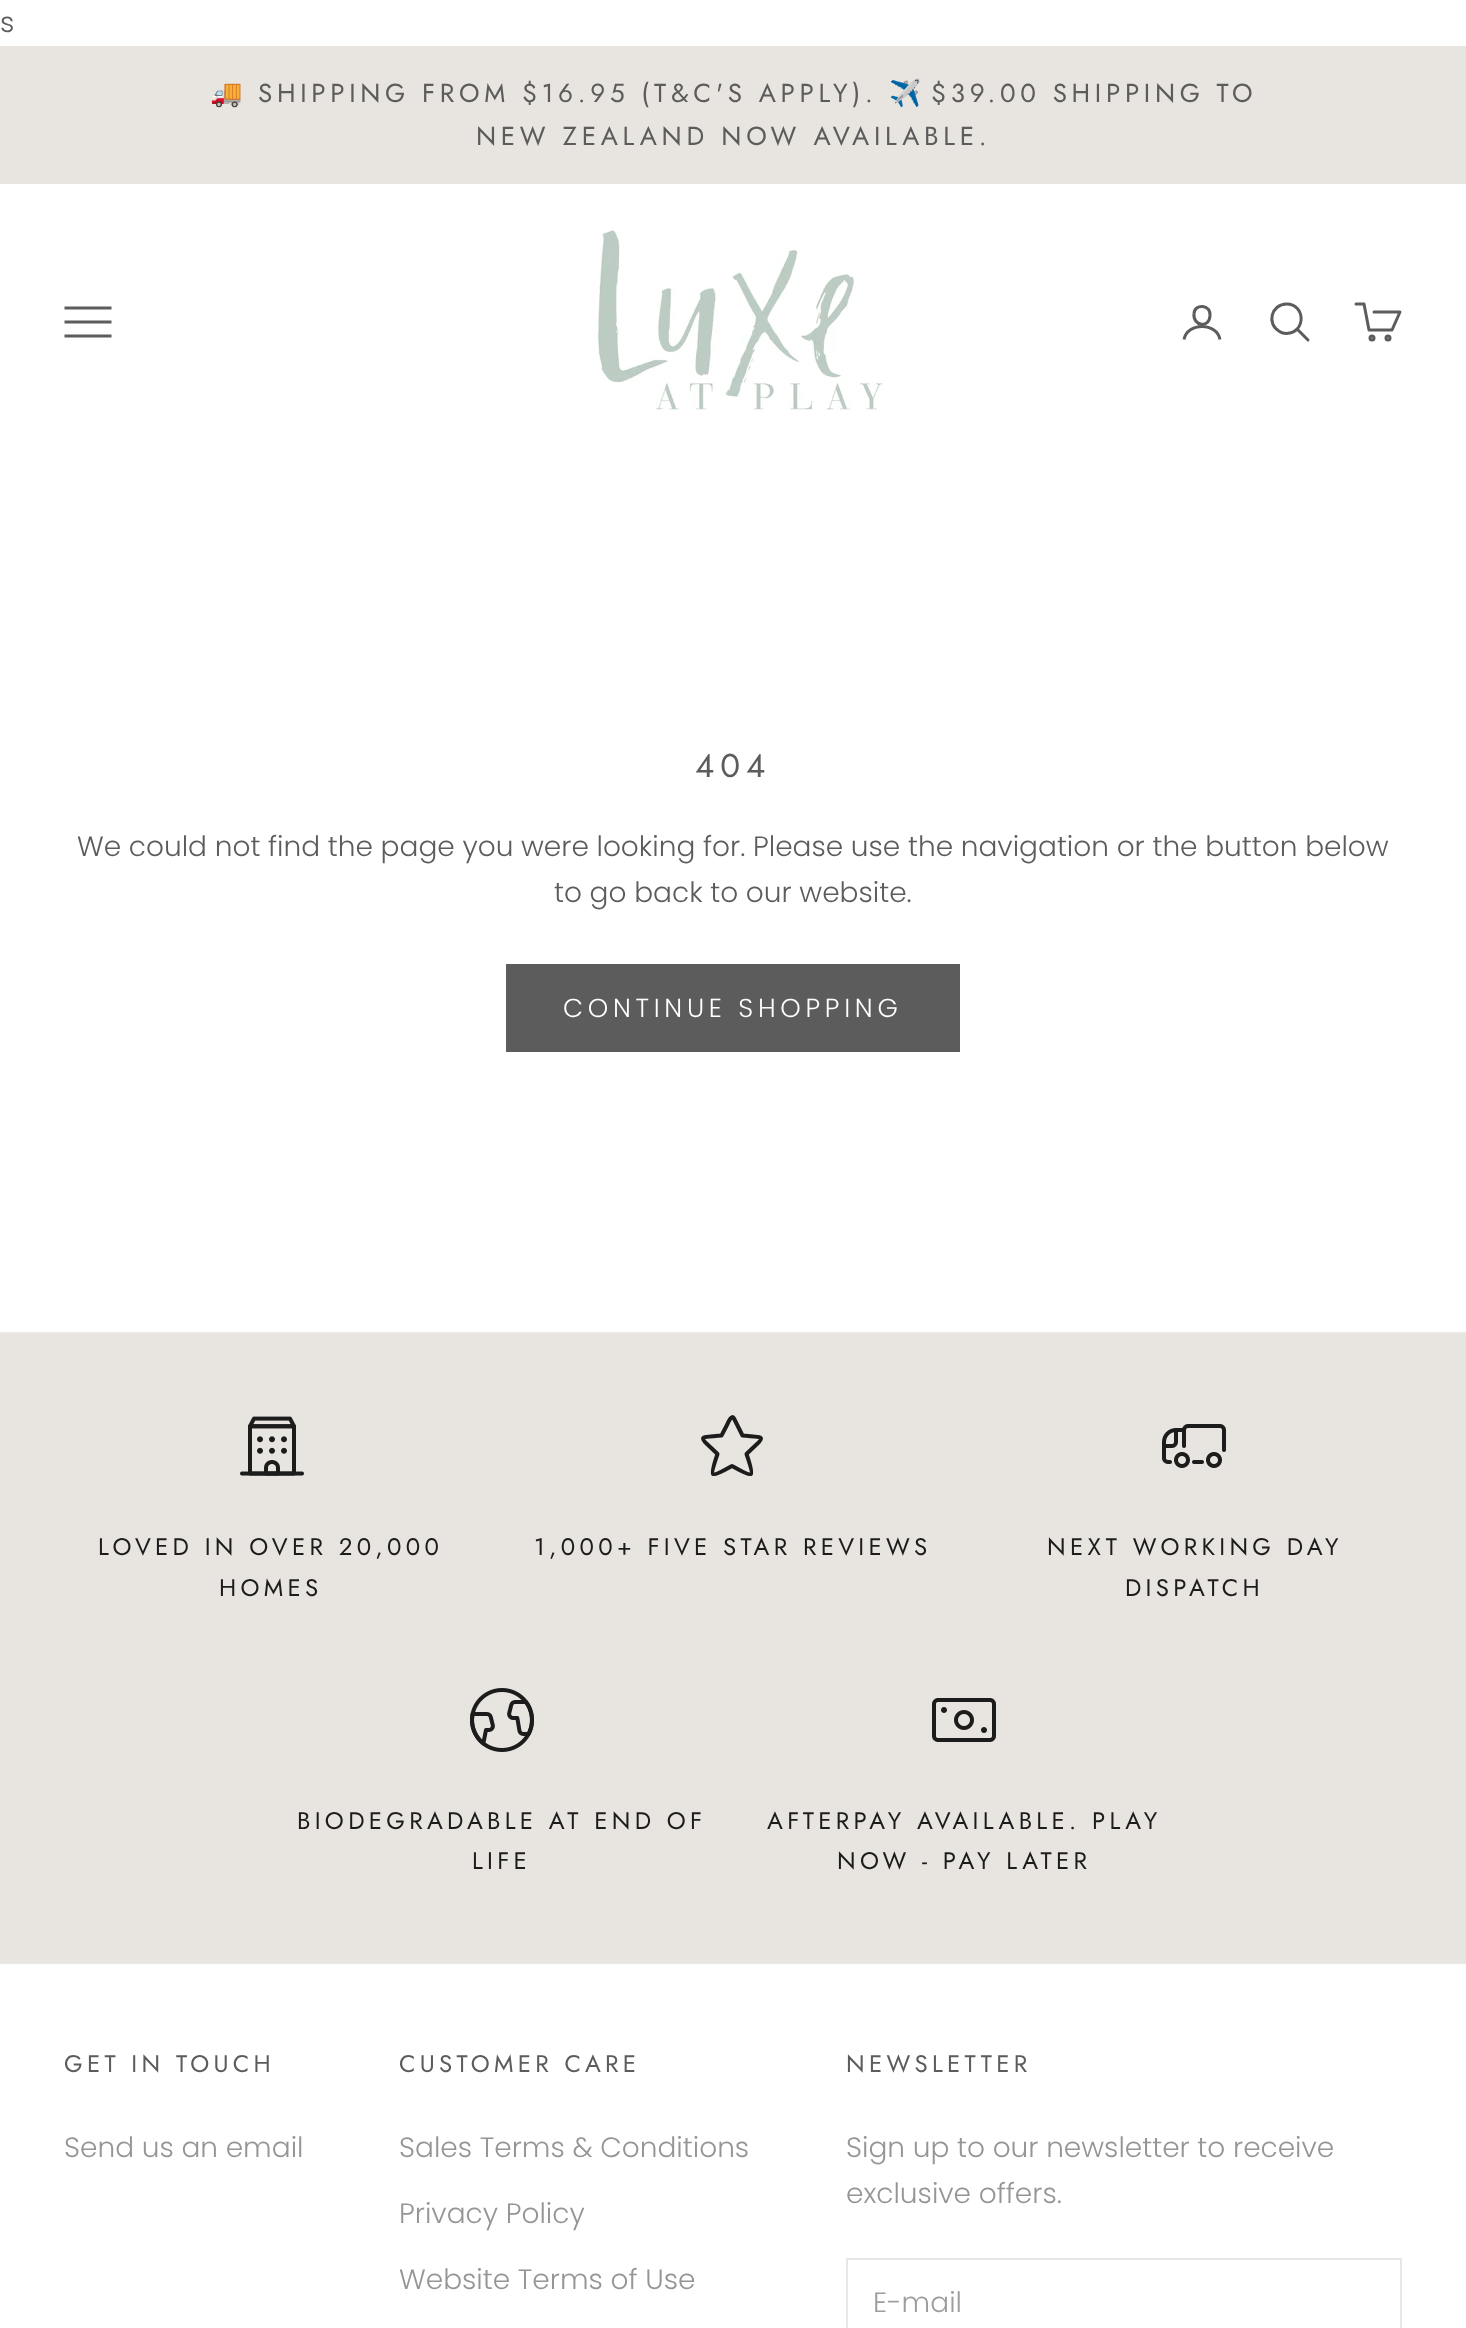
(async () => {
  const canvas = document.querySelector("canvas");
  canvas.width = 1466;
  canvas.height = 2328;
  const ctx = canvas.getContext("2d");
  ctx.miterLimit = 4;
  ctx.fontKerning = "normal";
  async function loadImage(src) {
    const img = new Image();
    img.src = src;
    await img.decode();
    return img;
  }
  let path;

  ctx.fillStyle = "#ffffff";
  ctx.fillRect(0, 0, 1466, 2328);
  ctx.fillStyle = "#e8e4e0";
  ctx.fillRect(0, 46, 1466, 138);
  path = new Path2D("M66 336H110M66 322H110M66 308H110");
  ctx.strokeStyle = "#5c5c5c";
  ctx.lineWidth = 3;
  ctx.lineCap = "square";
  ctx.stroke(path);
  ctx.drawImage(await loadImage("img/1.png"), 598, 230, 286, 181);
  path = new Path2D("M1210 315.5C1209.5 329 1192.5 326 1194 313.5C1195 303 1211 304.5 1210 315.5Z");
  ctx.lineCap = "round";
  ctx.lineJoin = "round";
  ctx.stroke(path);
  path = new Path2D("M1184 339.5C1187 322 1217 322 1220 339.5");
  ctx.lineCap = "butt";
  ctx.lineJoin = "miter";
  ctx.stroke(path);
  path = new Path2D("M1286.5 304C1271.5 304 1266 324 1279.5 331.5C1281.5 333 1284 333.5 1286.5 333.5C1306.5 332.5 1305.5 304 1286.5 304Z");
  ctx.stroke(path);
  path = new Path2D("M1297.5 329.5L1308 340");
  ctx.lineCap = "round";
  ctx.stroke(path);
  path = new Path2D("M1374 312H1400L1392 330H1369L1364 304H1356");
  ctx.lineJoin = "round";
  ctx.stroke(path);
  ctx.beginPath();
  ctx.arc(1372, 338, 2, 0, Math.PI * 2);
  ctx.stroke();
  ctx.beginPath();
  ctx.arc(1388, 338, 2, 0, Math.PI * 2);
  ctx.stroke();
  ctx.fillStyle = "#5c5c5c";
  ctx.beginPath();
  ctx.rect(507, 965, 452, 86);
  ctx.fill();
  ctx.lineWidth = 2;
  ctx.lineJoin = "miter";
  ctx.stroke();
  ctx.fillStyle = "#e8e4e0";
  ctx.fillRect(0, 1334, 1466, 628);
  ctx.fillStyle = "#ebe8e5";
  ctx.fillRect(0, 1332, 1466, 2);
  ctx.drawImage(await loadImage("img/2.png"), 240, 1416, 64, 60);
  path = new Path2D("M734 1418.5L742.5 1435.5C767 1438 766 1435 746.5 1454C747.5 1457 753 1472.5 751 1474C748.5 1476 735 1467.5 732 1466C729 1467.5 715.5 1476 713 1474C711 1472.5 716.5 1457 717.5 1454C698 1435 697 1438 721.5 1435.5L727.5 1424C727.5 1424 731.5 1413.5 734 1418.5Z");
  ctx.strokeStyle = "#1c1c1c";
  ctx.lineWidth = 4;
  ctx.lineJoin = "round";
  ctx.stroke(path);
  ctx.drawImage(await loadImage("img/3.png"), 1162, 1424, 64, 44);
  ctx.drawImage(await loadImage("img/4.png"), 470, 1688, 64, 64);
  ctx.drawImage(await loadImage("img/5.png"), 932, 1698, 64, 44);
  ctx.fillStyle = "#e7e7e7";
  ctx.fillRect(0, 1962, 1466, 2);
  ctx.strokeStyle = "#e7e7e7";
  ctx.lineWidth = 2;
  ctx.lineJoin = "miter";
  ctx.strokeRect(847, 2259, 554, 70);
  ctx.font = "300 28px Poppins";
  ctx.fillStyle = "#5c5c5c";
  ctx.fillText("s", 0, 32);
  ctx.letterSpacing = "4.7px";
  ctx.font = "26px Noto Color Emoji";
  ctx.fillText("🚚", 210, 102);
  ctx.wordSpacing = "-0.5px";
  ctx.font = "26px Jost";
  ctx.fillText("SHIPPING FROM $16.95 (T&C'S APPLY).", 258, 102);
  ctx.wordSpacing = "0px";
  ctx.font = "26px Noto Color Emoji";
  ctx.fillText("✈️", 889, 102);
  ctx.wordSpacing = "-0.5px";
  ctx.font = "26px Jost";
  ctx.fillText("$39.00 SHIPPING TO", 931, 102);
  ctx.wordSpacing = "0px";
  ctx.fillText("NEW ZEALAND NOW AVAILABLE.", 476, 145);
  ctx.letterSpacing = "6px";
  ctx.font = "33px Jost";
  ctx.fillText("404", 695, 777);
  ctx.letterSpacing = "0px";
  ctx.font = "300 28px Poppins";
  ctx.fillText("We could not find the page you were looking for. Please use the navigation or the button below", 77, 856);
  ctx.fillText("to go back to our website.", 554, 902);
  ctx.letterSpacing = "4.7px";
  ctx.font = "300 26px Poppins";
  ctx.fillStyle = "#ffffff";
  ctx.fillText("CONTINUE SHOPPING", 563, 1017);
  ctx.letterSpacing = "4.3px";
  ctx.font = "24px Jost";
  ctx.fillStyle = "#1c1c1c";
  for (const [text, x, y] of [
    ["LOVED IN OVER 20,000", 98, 1555],
    ["HOMES", 219, 1596],
    ["1,000+ FIVE STAR REVIEWS", 534, 1555],
    ["NEXT WORKING DAY", 1047, 1555],
    ["DISPATCH", 1125, 1596],
    ["BIODEGRADABLE AT END OF", 297, 1829],
    ["LIFE", 472, 1869],
    ["AFTERPAY AVAILABLE. PLAY", 767, 1829],
    ["NOW - PAY LATER", 837, 1869],
  ]) {
    ctx.fillText(text, x, y);
  }
  ctx.fillStyle = "#5c5c5c";
  ctx.fillText("GET IN TOUCH", 64, 2072);
  ctx.letterSpacing = "0px";
  ctx.font = "300 28px Poppins";
  ctx.fillStyle = "#959595";
  ctx.fillText("Send us an email", 64, 2157);
  ctx.letterSpacing = "4.3px";
  ctx.font = "24px Jost";
  ctx.fillStyle = "#5c5c5c";
  ctx.fillText("CUSTOMER CARE", 399, 2072);
  ctx.letterSpacing = "0px";
  ctx.font = "300 28px Poppins";
  ctx.fillStyle = "#959595";
  for (const [text, x, y] of [
    ["Sales Terms & Conditions", 399, 2157],
    ["Privacy Policy", 399, 2223],
    ["Website Terms of Use", 399, 2289],
  ]) {
    ctx.fillText(text, x, y);
  }
  ctx.letterSpacing = "4.3px";
  ctx.font = "24px Jost";
  ctx.fillStyle = "#5c5c5c";
  ctx.fillText("NEWSLETTER", 846, 2072);
  ctx.letterSpacing = "0px";
  ctx.font = "300 28px Poppins";
  ctx.fillStyle = "#959595";
  ctx.fillText("Sign up to our newsletter to receive", 846, 2157);
  ctx.fillText("exclusive offers.", 846, 2203);
  ctx.fillStyle = "#9d9d9d";
  ctx.fillText("E-mail", 873, 2312);
})();
